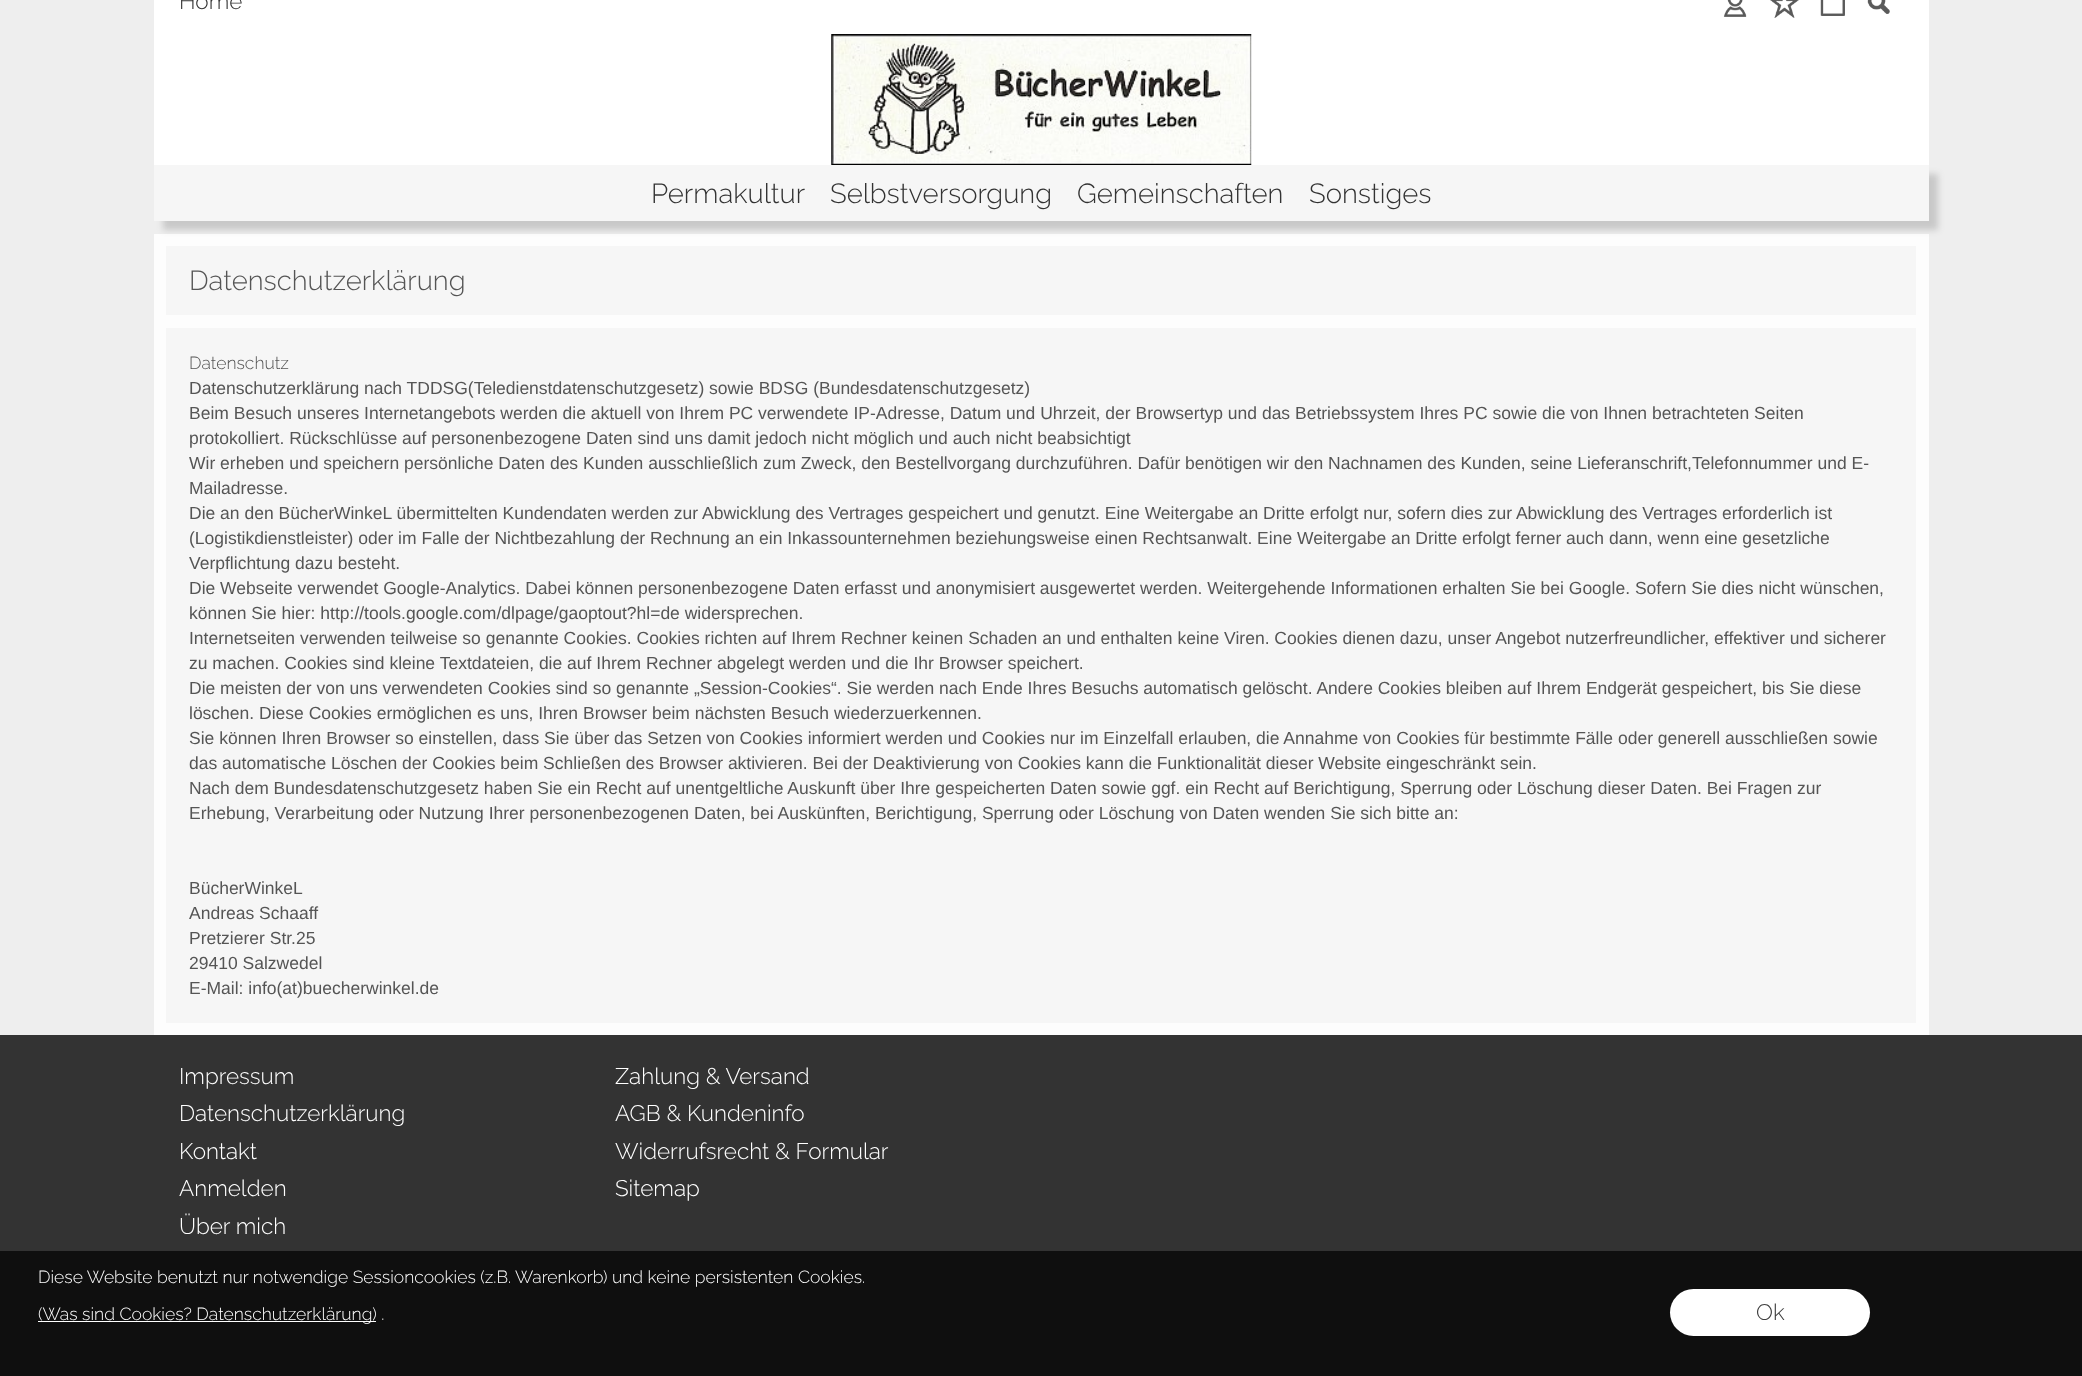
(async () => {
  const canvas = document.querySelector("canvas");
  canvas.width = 2082;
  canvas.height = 1376;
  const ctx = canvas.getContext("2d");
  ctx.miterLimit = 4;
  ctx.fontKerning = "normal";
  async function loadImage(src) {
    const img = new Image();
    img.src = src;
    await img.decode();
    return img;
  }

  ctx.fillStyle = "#eeeeee";
  ctx.fillRect(0, 0, 2082, 1376);
  ctx.fillStyle = "#ffffff";
  ctx.fillRect(154, 0, 1775, 165);
  ctx.drawImage(await loadImage("img/1.png"), 831, 34, 421, 131);
  ctx.drawImage(await loadImage("img/2.png"), 1723, 0, 24, 17);
  ctx.drawImage(await loadImage("img/3.png"), 1770, 0, 29, 18);
  ctx.drawImage(await loadImage("img/4.png"), 1820, 0, 25, 16);
  ctx.drawImage(await loadImage("img/5.png"), 1867, 0, 23, 14);
  ctx.fillStyle = "#fdfdfd";
  ctx.fillRect(154, 234, 1775, 801);
  ctx.fillStyle = "rgba(50, 50, 50, 0.2)";
  ctx.filter = "blur(3px)";
  ctx.beginPath();
  ctx.rect(163, 174, 1775, 56);
  ctx.fill();
  ctx.filter = "none";
  for (const [x, y, w, h, color] of [
    [154, 165, 1775, 56, "#f6f6f6"],
    [166, 246, 1750, 69, "#f6f6f6"],
    [166, 328, 1750, 695, "#f6f6f6"],
    [0, 1035, 2082, 341, "#333333"],
    [0, 1251, 2082, 125, "rgba(0, 0, 0, 0.7)"],
    [38, 1321, 338, 1, "#ffffff"],
  ]) {
    ctx.fillStyle = color;
    ctx.fillRect(x, y, w, h);
  }
  ctx.beginPath();
  ctx.roundRect(1670, 1289, 200, 47, 23.5);
  ctx.fill();
  ctx.font = "300 22.5px Raleway";
  ctx.fillStyle = "#333333";
  ctx.fillText("Home", 179, 9);
  ctx.font = "300 27.5px Raleway";
  for (const [text, x, y] of [
    ["Permakultur", 651, 203],
    ["Selbstversorgung", 830, 203],
    ["Gemeinschaften", 1077, 203],
    ["Sonstiges", 1309, 203],
  ]) {
    ctx.fillText(text, x, y);
  }
  ctx.fillStyle = "#555555";
  ctx.fillText("Datenschutzerklärung", 189, 290);
  ctx.font = "300 17.5px Raleway";
  ctx.fillText("Datenschutz", 189, 369);
  ctx.font = "17.5px Liberation Sans";
  for (const [text, x, y] of [
    ["Datenschutzerklärung nach TDDSG(Teledienstdatenschutzgesetz) sowie BDSG (Bundesdatenschutzgesetz)", 189, 394],
    ["Beim Besuch unseres Internetangebots werden die aktuell von Ihrem PC verwendete IP-Adresse, Datum und Uhrzeit, der Browsertyp und das Betriebssystem Ihres PC sowie die von Ihnen betrachteten Seiten", 189, 419],
    ["protokolliert. Rückschlüsse auf personenbezogene Daten sind uns damit jedoch nicht möglich und auch nicht beabsichtigt", 189, 444],
    ["Wir erheben und speichern persönliche Daten des Kunden ausschließlich zum Zweck, den Bestellvorgang durchzuführen. Dafür benötigen wir den Nachnamen des Kunden, seine Lieferanschrift,Telefonnummer und E-", 189, 469],
    ["Mailadresse.", 189, 494],
    ["Die an den BücherWinkeL übermittelten Kundendaten werden zur Abwicklung des Vertrages gespeichert und genutzt. Eine Weitergabe an Dritte erfolgt nur, sofern dies zur Abwicklung des Vertrages erforderlich ist", 189, 519],
    ["(Logistikdienstleister) oder im Falle der Nichtbezahlung der Rechnung an ein Inkassounternehmen beziehungsweise einen Rechtsanwalt. Eine Weitergabe an Dritte erfolgt ferner auch dann, wenn eine gesetzliche", 189, 544],
    ["Verpflichtung dazu besteht.", 189, 569],
    ["Die Webseite verwendet Google-Analytics. Dabei können personenbezogene Daten erfasst und anonymisiert ausgewertet werden. Weitergehende Informationen erhalten Sie bei Google. Sofern Sie dies nicht wünschen,", 189, 594],
    ["können Sie hier: http://tools.google.com/dlpage/gaoptout?hl=de widersprechen.", 189, 619],
    ["Internetseiten verwenden teilweise so genannte Cookies. Cookies richten auf Ihrem Rechner keinen Schaden an und enthalten keine Viren. Cookies dienen dazu, unser Angebot nutzerfreundlicher, effektiver und sicherer", 189, 644],
    ["zu machen. Cookies sind kleine Textdateien, die auf Ihrem Rechner abgelegt werden und die Ihr Browser speichert.", 189, 669],
    ["Die meisten der von uns verwendeten Cookies sind so genannte „Session-Cookies“. Sie werden nach Ende Ihres Besuchs automatisch gelöscht. Andere Cookies bleiben auf Ihrem Endgerät gespeichert, bis Sie diese", 189, 694],
    ["löschen. Diese Cookies ermöglichen es uns, Ihren Browser beim nächsten Besuch wiederzuerkennen.", 189, 719],
    ["Sie können Ihren Browser so einstellen, dass Sie über das Setzen von Cookies informiert werden und Cookies nur im Einzelfall erlauben, die Annahme von Cookies für bestimmte Fälle oder generell ausschließen sowie", 189, 744],
    ["das automatische Löschen der Cookies beim Schließen des Browser aktivieren. Bei der Deaktivierung von Cookies kann die Funktionalität dieser Website eingeschränkt sein.", 189, 769],
    ["Nach dem Bundesdatenschutzgesetz haben Sie ein Recht auf unentgeltliche Auskunft über Ihre gespeicherten Daten sowie ggf. ein Recht auf Berichtigung, Sperrung oder Löschung dieser Daten. Bei Fragen zur", 189, 794],
    ["Erhebung, Verarbeitung oder Nutzung Ihrer personenbezogenen Daten, bei Auskünften, Berichtigung, Sperrung oder Löschung von Daten wenden Sie sich bitte an:", 189, 819],
    ["BücherWinkeL", 189, 894],
    ["Andreas Schaaff", 189, 919],
    ["Pretzierer Str.25", 189, 944],
    ["29410 Salzwedel", 189, 969],
    ["E-Mail: info(at)buecherwinkel.de", 189, 994],
  ]) {
    ctx.fillText(text, x, y);
  }
  ctx.font = "300 22.5px Raleway";
  ctx.fillStyle = "#ffffff";
  for (const [text, x, y] of [
    ["Impressum", 179, 1084],
    ["Datenschutzerklärung", 179, 1121],
    ["Kontakt", 179, 1159],
    ["Anmelden", 179, 1196],
    ["Über mich", 179, 1234],
    ["Zahlung & Versand", 615, 1084],
    ["AGB & Kundeninfo", 615, 1121],
    ["Widerrufsrecht & Formular", 615, 1159],
    ["Sitemap", 615, 1196],
  ]) {
    ctx.fillText(text, x, y);
  }
  ctx.font = "300 17.5px Raleway";
  ctx.fillText("Diese Website benutzt nur notwendige Sessioncookies (z.B. Warenkorb) und keine persistenten Cookies.", 38, 1283);
  ctx.fillText("(Was sind Cookies? Datenschutzerklärung) .", 38, 1320);
  ctx.font = "300 22.5px Raleway";
  ctx.fillStyle = "#3e3e3e";
  ctx.fillText("Ok", 1756, 1320);
})();
